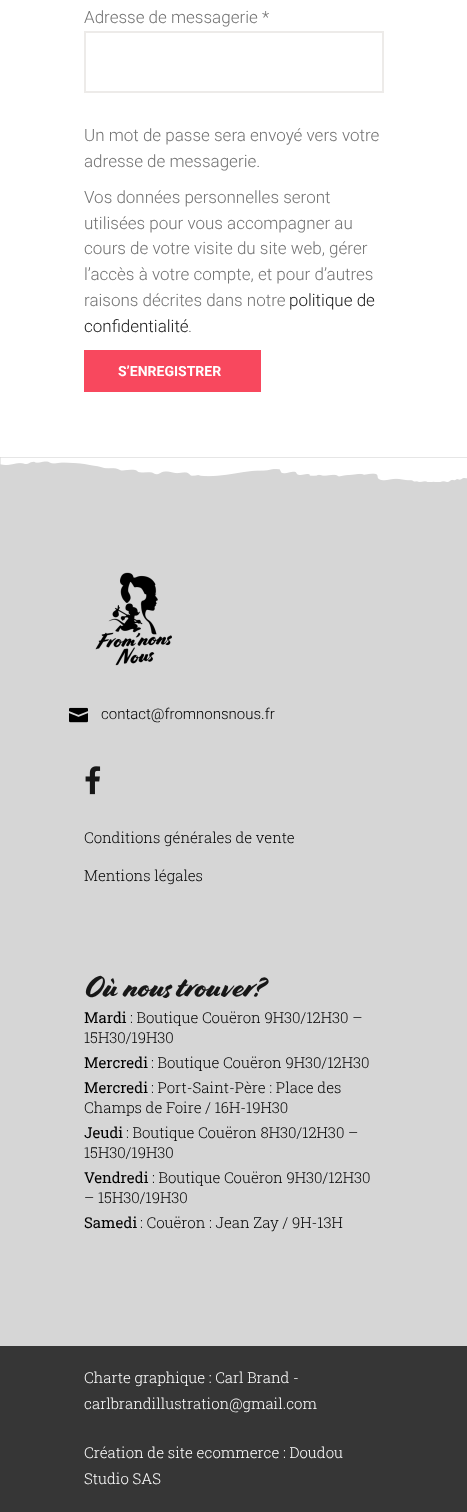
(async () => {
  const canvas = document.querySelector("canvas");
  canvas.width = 467;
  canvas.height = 1512;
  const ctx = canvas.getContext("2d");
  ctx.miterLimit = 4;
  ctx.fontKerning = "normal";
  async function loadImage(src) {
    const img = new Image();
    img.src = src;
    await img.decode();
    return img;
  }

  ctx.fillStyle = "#ffffff";
  ctx.fillRect(0, 0, 467, 1512);
  ctx.strokeStyle = "#edebe9";
  ctx.lineWidth = 2;
  ctx.strokeRect(85, 32, 298, 60);
  ctx.fillStyle = "#f8485e";
  ctx.fillRect(84, 350, 177, 42);
  ctx.fillStyle = "#d6d6d6";
  ctx.fillRect(0, 457, 467, 889);
  ctx.drawImage(await loadImage("img/1.png"), 0, 457, 467, 25);
  ctx.drawImage(await loadImage("img/2.png"), 95, 572, 77, 94);
  ctx.drawImage(await loadImage("img/3.png"), 69, 707, 19, 16);
  ctx.drawImage(await loadImage("img/4.png"), 85, 766, 16, 29);
  ctx.fillStyle = "#363636";
  ctx.fillRect(0, 1346, 467, 166);
  ctx.font = "300 17px Roboto";
  ctx.fillStyle = "#737373";
  for (const [text, x, y] of [
    ["Adresse de messagerie *", 84, 23],
    ["Un mot de passe sera envoyé vers votre", 84, 141],
    ["adresse de messagerie.", 84, 167],
    ["Vos données personnelles seront", 84, 203],
    ["utilisées pour vous accompagner au", 84, 229],
    ["cours de votre visite du site web, gérer", 84, 254],
    ["l’accès à votre compte, et pour d’autres", 84, 280],
    ["raisons décrites dans notre", 84, 306],
  ]) {
    ctx.fillText(text, x, y);
  }
  ctx.fillStyle = "#171717";
  ctx.fillText("politique de", 289, 306);
  ctx.fillText("confidentialité", 84, 332);
  ctx.fillStyle = "#737373";
  ctx.fillText(".", 188, 332);
  ctx.font = "bold 14px Roboto";
  ctx.fillStyle = "#ffffff";
  ctx.fillText("S’ENREGISTRER", 118, 376);
  ctx.font = "300 15px Roboto";
  ctx.fillStyle = "#000000";
  ctx.fillText("contact@fromnonsnous.fr", 101, 719);
  ctx.font = "300 15px Roboto Slab";
  ctx.fillText("Conditions générales de vente", 84, 843);
  ctx.fillText("Mentions légales", 84, 881);
  ctx.font = "30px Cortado";
  ctx.fillStyle = "#171717";
  ctx.fillText("Où nous trouver?", 84, 996);
  ctx.font = "15px Roboto Slab";
  ctx.fillStyle = "#000000";
  ctx.fillText("Mardi", 84, 1023);
  ctx.font = "300 15px Roboto Slab";
  ctx.fillText(": Boutique Couëron 9H30/12H30 –", 130, 1023);
  ctx.fillText("15H30/19H30", 84, 1043);
  ctx.font = "15px Roboto Slab";
  ctx.fillText("Mercredi", 84, 1068);
  ctx.font = "300 15px Roboto Slab";
  ctx.fillText(": Boutique Couëron 9H30/12H30", 151, 1068);
  ctx.font = "15px Roboto Slab";
  ctx.fillText("Mercredi", 84, 1093);
  ctx.font = "300 15px Roboto Slab";
  ctx.fillText(": Port-Saint-Père : Place des", 151, 1093);
  ctx.fillText("Champs de Foire / 16H-19H30", 84, 1113);
  ctx.font = "15px Roboto Slab";
  ctx.fillText("Jeudi", 84, 1138);
  ctx.font = "300 15px Roboto Slab";
  ctx.fillText(": Boutique Couëron 8H30/12H30 –", 126, 1138);
  ctx.fillText("15H30/19H30", 84, 1158);
  ctx.font = "15px Roboto Slab";
  ctx.fillText("Vendredi", 84, 1183);
  ctx.font = "300 15px Roboto Slab";
  ctx.fillText(": Boutique Couëron 9H30/12H30", 152, 1183);
  ctx.fillText("– 15H30/19H30", 84, 1203);
  ctx.font = "15px Roboto Slab";
  ctx.fillText("Samedi", 84, 1228);
  ctx.font = "300 15px Roboto Slab";
  ctx.fillText(": Couëron : Jean Zay / 9H-13H", 140, 1228);
  ctx.fillStyle = "#ffffff";
  for (const [text, x, y] of [
    ["Charte graphique : Carl Brand -", 84, 1383],
    ["carlbrandillustration@gmail.com", 84, 1409],
    ["Création de site ecommerce : Doudou", 84, 1458],
    ["Studio SAS", 84, 1484],
  ]) {
    ctx.fillText(text, x, y);
  }
})();
